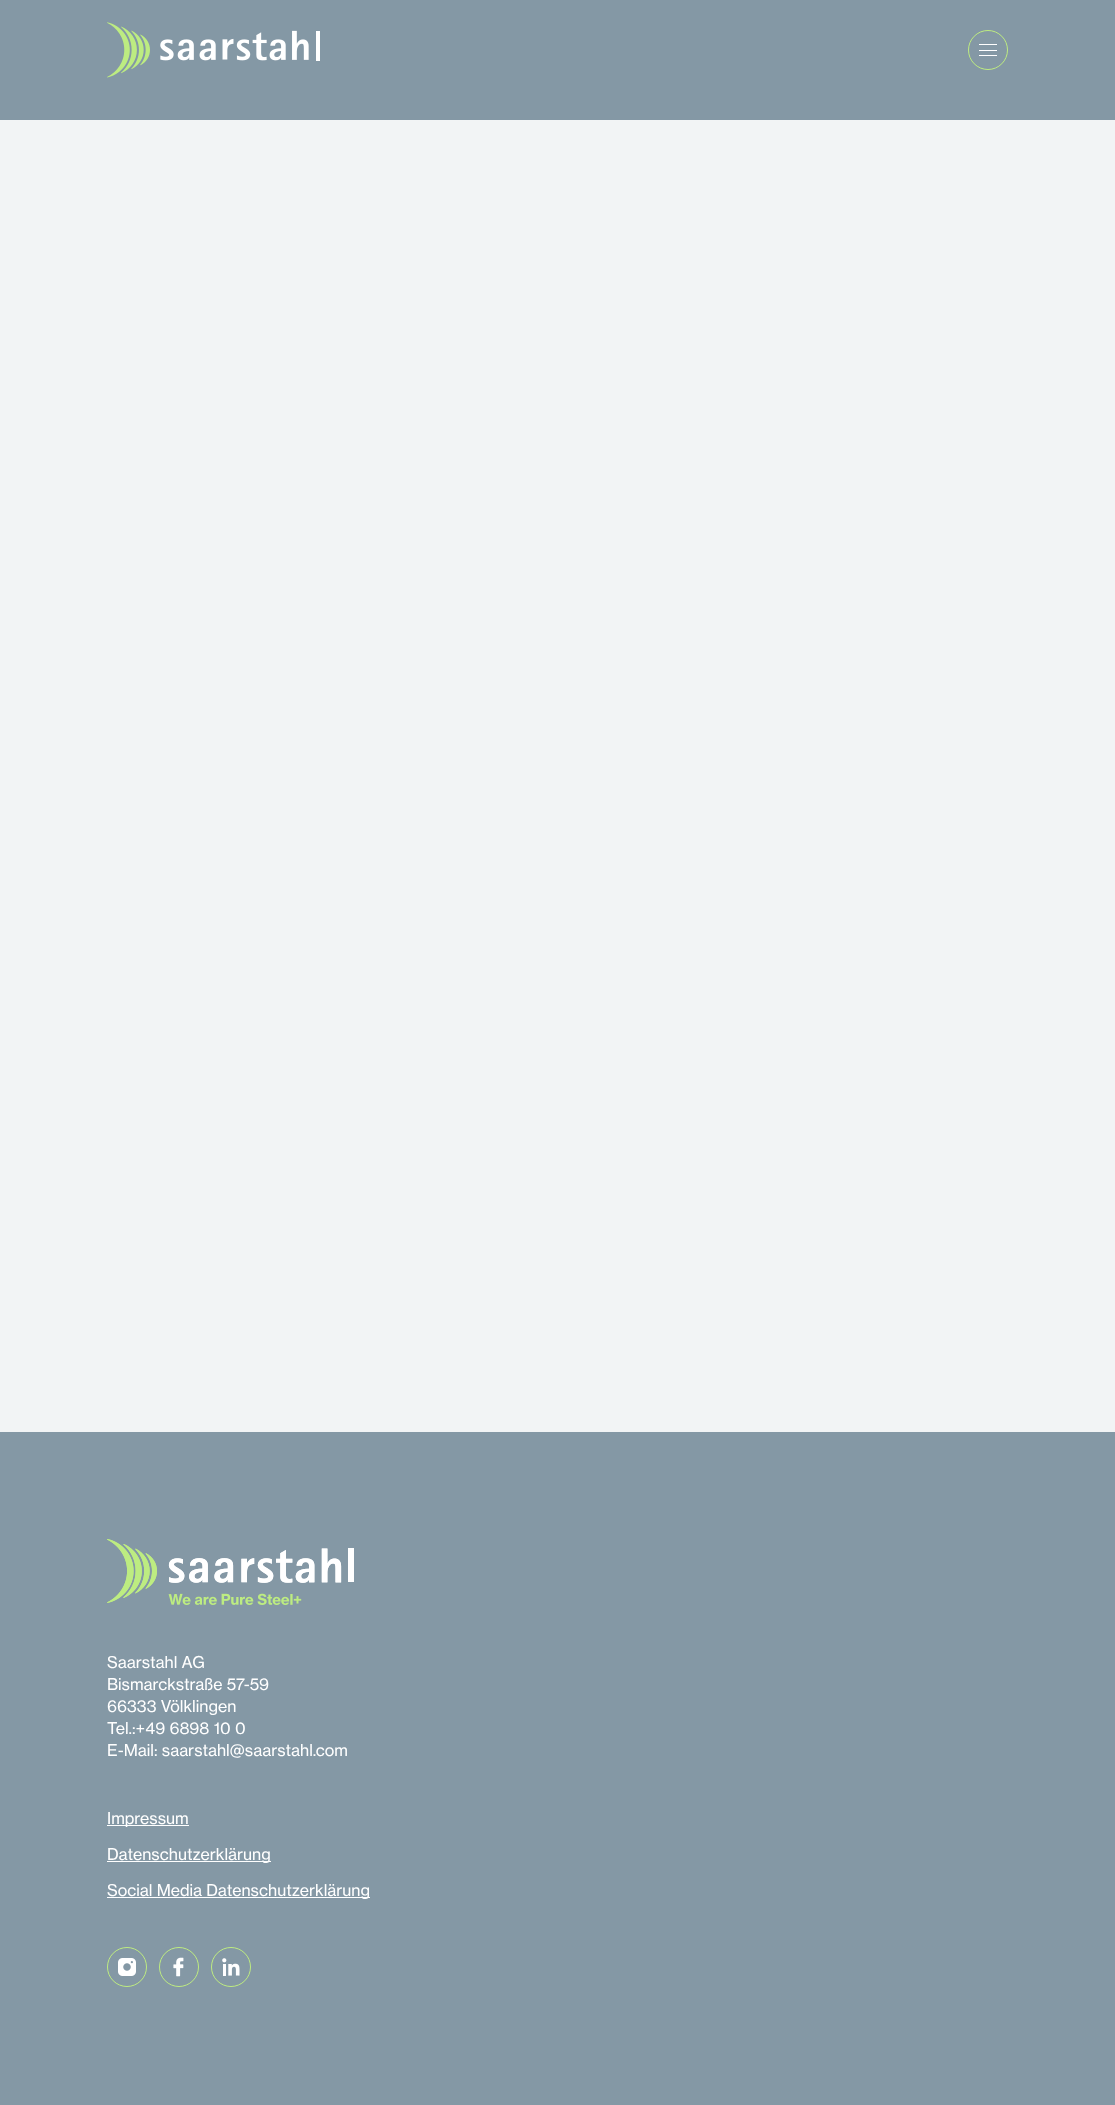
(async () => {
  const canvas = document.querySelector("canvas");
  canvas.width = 1115;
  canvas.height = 2105;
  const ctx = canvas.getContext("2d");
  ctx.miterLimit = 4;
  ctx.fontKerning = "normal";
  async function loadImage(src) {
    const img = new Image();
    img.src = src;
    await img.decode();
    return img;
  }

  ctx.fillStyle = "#f2f4f5";
  ctx.fillRect(0, 0, 1115, 2105);
  ctx.fillStyle = "#8498a5";
  ctx.fillRect(0, 0, 1115, 120);
  ctx.drawImage(await loadImage("img/1.png"), 107, 22, 213, 56);
  ctx.beginPath();
  ctx.arc(988, 50, 19.5, 0, Math.PI * 2);
  ctx.strokeStyle = "#beec81";
  ctx.stroke();
  for (const [x, y, w, h, color] of [
    [979, 44, 18, 1, "#ffffff"],
    [979, 50, 18, 1, "#ffffff"],
    [979, 55, 18, 1, "#ffffff"],
    [0, 1432, 1115, 673, "#8498a5"],
  ]) {
    ctx.fillStyle = color;
    ctx.fillRect(x, y, w, h);
  }
  ctx.drawImage(await loadImage("img/2.png"), 107, 1539, 247, 66);
  for (const [x, y, w, h, color] of [
    [107, 1825, 82, 1, "#ffffff"],
    [107, 1861, 164, 1, "#ffffff"],
    [107, 1897, 263, 1, "#ffffff"],
  ]) {
    ctx.fillStyle = color;
    ctx.fillRect(x, y, w, h);
  }
  ctx.beginPath();
  ctx.arc(127, 1967, 19.5, 0, Math.PI * 2);
  ctx.stroke();
  ctx.drawImage(await loadImage("img/3.png"), 118, 1958, 18, 18);
  ctx.beginPath();
  ctx.arc(179, 1967, 19.5, 0, Math.PI * 2);
  ctx.stroke();
  ctx.drawImage(await loadImage("img/4.png"), 173, 1957, 11, 20);
  ctx.beginPath();
  ctx.arc(231, 1967, 19.5, 0, Math.PI * 2);
  ctx.stroke();
  ctx.drawImage(await loadImage("img/5.png"), 222, 1958, 18, 18);
  ctx.font = "16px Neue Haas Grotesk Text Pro";
  for (const [text, x, y] of [
    ["Saarstahl AG", 107, 1668],
    ["Bismarckstraße 57-59", 107, 1690],
    ["66333 Völklingen", 107, 1712],
    ["Tel.:+49 6898 10 0", 107, 1734],
    ["E-Mail: saarstahl@saarstahl.com", 107, 1756],
    ["Impressum", 107, 1824],
    ["Datenschutzerklärung", 107, 1860],
    ["Social Media Datenschutzerklärung", 107, 1896],
  ]) {
    ctx.fillText(text, x, y);
  }
})();
